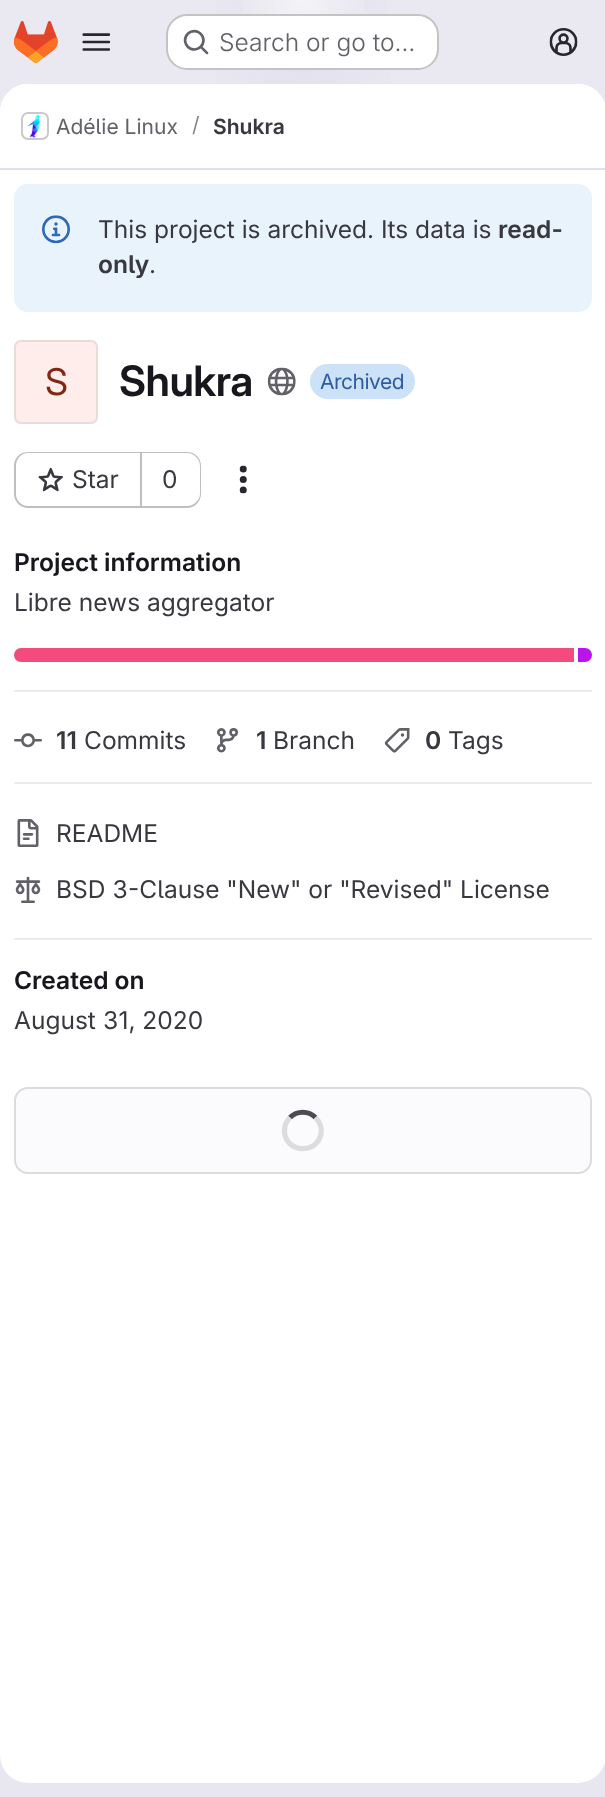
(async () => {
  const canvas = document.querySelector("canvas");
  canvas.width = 605;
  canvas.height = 1797;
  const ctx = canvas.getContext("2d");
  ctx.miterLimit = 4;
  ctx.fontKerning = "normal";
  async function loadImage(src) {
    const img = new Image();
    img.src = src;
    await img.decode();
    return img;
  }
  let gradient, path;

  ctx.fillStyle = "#ffffff";
  ctx.fillRect(0, 0, 605, 1797);
  gradient = ctx.createLinearGradient(466, 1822, 140, -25);
  gradient.addColorStop(0, "#e8e6f0");
  gradient.addColorStop(0.7, "#eae9f2");
  ctx.fillStyle = gradient;
  ctx.fillRect(0, 0, 605, 1797);
  gradient = ctx.createRadialGradient(303, 0, 0, 303, 0, 303);
  gradient.addColorStop(0, "#e4e2ed");
  gradient.addColorStop(0.4, "rgba(228, 226, 237, 0)");
  ctx.fillStyle = gradient;
  ctx.beginPath();
  ctx.rect(215, 0, 176, 84);
  ctx.save();
  ctx.clip();
  ctx.scale(1, 1797 / 303);
  ctx.fillRect(0, 0, 605, 303);
  ctx.restore();
  gradient = ctx.createRadialGradient(303, 0, 0, 303, 0, 303);
  gradient.addColorStop(0, "#e4e2ec");
  gradient.addColorStop(0.29, "rgba(228, 226, 236, 0)");
  ctx.fillStyle = gradient;
  ctx.beginPath();
  ctx.rect(262, 22, 82, 60);
  ctx.save();
  ctx.clip();
  ctx.scale(1, 1797 / 303);
  ctx.fillRect(0, 0, 605, 303);
  ctx.restore();
  gradient = ctx.createRadialGradient(303, 0, 0, 303, 0, 1823);
  gradient.addColorStop(0, "rgba(255, 255, 255, 0.6)");
  gradient.addColorStop(0.04, "rgba(255, 255, 255, 0)");
  ctx.fillStyle = gradient;
  ctx.fillRect(242, 0, 122, 62);
  ctx.drawImage(await loadImage("img/1.png"), 14, 21, 44, 42);
  ctx.drawImage(await loadImage("img/2.png"), 82, 33, 29, 18);
  ctx.fillStyle = "#ffffff";
  ctx.beginPath();
  ctx.roundRect(166, 14, 273, 56, 21);
  ctx.fill();
  ctx.beginPath();
  ctx.roundRect(167, 15, 271, 54, 20);
  ctx.strokeStyle = "rgba(5, 5, 6, 0.24)";
  ctx.lineWidth = 2;
  ctx.stroke();
  ctx.drawImage(await loadImage("img/3.png"), 183, 29, 26, 26);
  ctx.drawImage(await loadImage("img/4.png"), 549, 28, 29, 28);
  ctx.beginPath();
  ctx.roundRect(0, 84, 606, 1699, 28);
  ctx.fill();
  path = new Path2D("M28 84H578C593.5 84 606 96.5 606 112V170H0V112C0 96.5 12.5 84 28 84Z");
  ctx.fill(path);
  ctx.fillStyle = "#e1dfec";
  ctx.fillRect(0, 168, 605, 2);
  ctx.beginPath();
  ctx.roundRect(22, 113, 26, 26, 6);
  ctx.strokeStyle = "#dcdcde";
  ctx.stroke();
  ctx.drawImage(await loadImage("img/5.png"), 27, 114, 16, 24);
  ctx.beginPath();
  ctx.roundRect(22, 113, 26, 26, 6);
  ctx.strokeStyle = "rgba(5, 5, 6, 0.08)";
  ctx.stroke();
  ctx.fillStyle = "#e9f3fc";
  ctx.beginPath();
  ctx.roundRect(14, 184, 578, 128, 14);
  ctx.fill();
  ctx.drawImage(await loadImage("img/6.png"), 42, 215, 28, 29);
  ctx.fillStyle = "#feedeb";
  ctx.beginPath();
  ctx.roundRect(14, 340, 84, 84, 7);
  ctx.fill();
  ctx.beginPath();
  ctx.roundRect(15, 341, 82, 82, 6);
  ctx.stroke();
  ctx.drawImage(await loadImage("img/7.png"), 267, 367, 29, 29);
  ctx.fillStyle = "#cbe2f9";
  ctx.beginPath();
  ctx.roundRect(310, 364, 105, 35, 17.5);
  ctx.fill();
  ctx.fillStyle = "#bfbfc3";
  path = new Path2D("M28 452H140V508H28C20 508 14 501 14 494V466C14 458 20 452 28 452ZM28 453H140V506H28C21 506 16 500 16 494V466C16 459 21 453 28 453Z");
  ctx.fill(path, "evenodd");
  ctx.drawImage(await loadImage("img/8.png"), 38, 467, 25, 25);
  path = new Path2D("M142 452H187C195 452 201 458 201 466V494C201 501 195 508 187 508H142ZM142 453H187C194 453 200 459 200 466V494C200 500 194 506 187 506H142Z");
  ctx.fill(path, "evenodd");
  ctx.fillRect(140, 452, 2, 56);
  ctx.drawImage(await loadImage("img/9.png"), 239, 465, 8, 29);
  ctx.fillStyle = "#ececef";
  ctx.fillRect(14, 690, 578, 2);
  ctx.fillStyle = "#f34b7d";
  ctx.beginPath();
  ctx.roundRect(14, 648, 560, 14, [7, 0, 0, 7]);
  ctx.fill();
  ctx.fillStyle = "#b815ec";
  ctx.beginPath();
  ctx.roundRect(578, 648, 14, 14, [0, 7, 7, 0]);
  ctx.fill();
  ctx.fillStyle = "#ececef";
  ctx.fillRect(14, 782, 578, 2);
  ctx.drawImage(await loadImage("img/10.png"), 14, 733, 28, 15);
  ctx.drawImage(await loadImage("img/11.png"), 217, 728, 21, 25);
  ctx.drawImage(await loadImage("img/12.png"), 384, 728, 26, 25);
  ctx.fillRect(14, 938, 578, 2);
  ctx.drawImage(await loadImage("img/13.png"), 17, 819, 22, 28);
  ctx.drawImage(await loadImage("img/14.png"), 15, 876, 26, 27);
  ctx.fillStyle = "#fbfafd";
  ctx.beginPath();
  ctx.roundRect(15, 1088, 576, 85, 13);
  ctx.fill();
  ctx.strokeStyle = "#dcdcde";
  ctx.stroke();
  path = new Path2D("M290 1117.5C297 1110.5 308.5 1110.5 315.5 1117.5");
  ctx.strokeStyle = "#4c4b51";
  ctx.lineWidth = 5.2;
  ctx.stroke(path);
  path = new Path2D("M315.5 1117.5C320 1122 322 1128 321 1134C316.5 1155.5 284.5 1152.5 284.5 1130.5C284.5 1125.5 286.5 1121 290 1117.5");
  ctx.strokeStyle = "#dcdcde";
  ctx.stroke(path);
  ctx.font = "300 24.5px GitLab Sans";
  ctx.fillStyle = "#626168";
  ctx.fillText("Search or go to…", 219, 51);
  ctx.font = "21px GitLab Sans";
  ctx.fillText("Adélie Linux", 56, 134);
  ctx.fillStyle = "#89888d";
  ctx.fillText("/", 192, 132);
  ctx.font = "600 21px 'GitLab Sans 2'";
  ctx.fillStyle = "#3a383f";
  ctx.fillText("Shukra", 213, 134);
  ctx.font = "24.5px GitLab Sans";
  ctx.fillText("This project is archived. Its data is", 98, 238);
  ctx.font = "600 24.5px 'GitLab Sans 2'";
  ctx.fillText("read-", 498, 238);
  ctx.fillText("only", 98, 273);
  ctx.font = "24.5px GitLab Sans";
  ctx.fillText(".", 149, 273);
  ctx.font = "37px 'GitLab Sans 2'";
  ctx.fillStyle = "#812713";
  ctx.fillText("S", 45, 395);
  ctx.letterSpacing = "-0.5px";
  ctx.font = "600 42px GitLab Sans";
  ctx.fillStyle = "#18171d";
  ctx.fillText("Shukra", 119, 396);
  ctx.font = "21px GitLab Sans";
  ctx.fillStyle = "#2f5ca0";
  ctx.fillText("Archived", 320, 389);
  ctx.letterSpacing = "0px";
  ctx.font = "24.5px GitLab Sans";
  ctx.fillStyle = "#3a383f";
  ctx.fillText("Star", 72, 488);
  ctx.fillText("0", 162, 488);
  ctx.font = "600 24.5px 'GitLab Sans 2'";
  ctx.fillStyle = "#18171d";
  ctx.fillText("Project information", 14, 571);
  ctx.font = "24.5px GitLab Sans";
  ctx.fillStyle = "#3a383f";
  ctx.fillText("Libre news aggregator", 14, 611);
  ctx.font = "600 24.5px 'GitLab Sans 2'";
  ctx.fillText("11", 56, 749);
  ctx.font = "24.5px GitLab Sans";
  ctx.fillText("Commits", 84, 749);
  ctx.font = "600 24.5px 'GitLab Sans 2'";
  ctx.fillText("1", 256, 749);
  ctx.font = "24.5px GitLab Sans";
  ctx.fillText("Branch", 273, 749);
  ctx.font = "600 24.5px 'GitLab Sans 2'";
  ctx.fillText("0", 425, 749);
  ctx.font = "24.5px GitLab Sans";
  for (const [text, x, y] of [
    ["Tags", 448, 749],
    ["README", 56, 842],
    ["BSD 3-Clause \"New\" or \"Revised\" License", 56, 898],
  ]) {
    ctx.fillText(text, x, y);
  }
  ctx.font = "600 24.5px 'GitLab Sans 2'";
  ctx.fillStyle = "#18171d";
  ctx.fillText("Created on", 14, 989);
  ctx.font = "24.5px GitLab Sans";
  ctx.fillStyle = "#3a383f";
  ctx.fillText("August 31, 2020", 14, 1029);
})();
